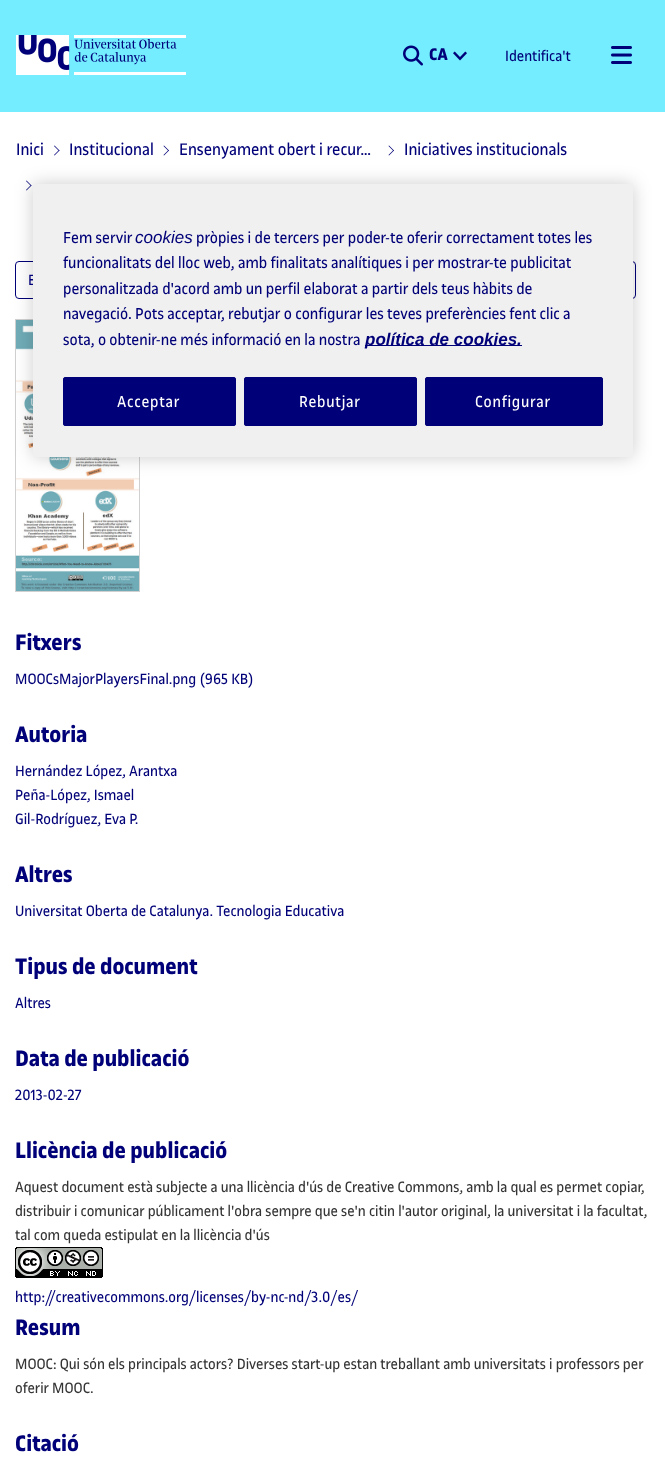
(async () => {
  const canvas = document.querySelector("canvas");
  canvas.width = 665;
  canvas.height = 1468;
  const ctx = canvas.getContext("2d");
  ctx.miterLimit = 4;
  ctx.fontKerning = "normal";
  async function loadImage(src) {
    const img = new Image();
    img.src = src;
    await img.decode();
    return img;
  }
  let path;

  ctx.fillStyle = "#ffffff";
  ctx.fillRect(0, 0, 665, 1468);
  ctx.fillStyle = "#73edff";
  ctx.fillRect(0, 0, 665, 112);
  ctx.drawImage(await loadImage("img/1.png"), 16, 35, 170, 40);
  ctx.drawImage(await loadImage("img/2.png"), 403, 45, 20, 21);
  ctx.drawImage(await loadImage("img/3.png"), 453, 51, 14, 10);
  ctx.drawImage(await loadImage("img/4.png"), 611, 46, 21, 18);
  ctx.fillStyle = "#000078";
  path = new Path2D("M54 146L54.5 145.5L59.5 150.5L59 151Z");
  ctx.fill(path);
  path = new Path2D("M54 155L59 150L59.5 150.5L54.5 155.5Z");
  ctx.fill(path);
  path = new Path2D("M163.5 146L164 145.5L169 150.5L168.5 151Z");
  ctx.fill(path);
  path = new Path2D("M163.5 155L168.5 150L169 150.5L164 155.5Z");
  ctx.fill(path);
  path = new Path2D("M388.5 146L389 145.5L394 150.5L393.5 151Z");
  ctx.fill(path);
  path = new Path2D("M388.5 155L393.5 150L394 150.5L389 155.5Z");
  ctx.fill(path);
  path = new Path2D("M26 181L26.5 180.5L31.5 185.5L31 186Z");
  ctx.fill(path);
  path = new Path2D("M26 190L31 185L31.5 185.5L26.5 190.5Z");
  ctx.fill(path);
  ctx.beginPath();
  ctx.roundRect(15.5, 261.5, 620, 37, 3.5);
  ctx.strokeStyle = "#000078";
  ctx.stroke();
  ctx.strokeStyle = "#d0d0d0";
  ctx.strokeRect(15.5, 319.5, 124, 272);
  ctx.drawImage(await loadImage("img/5.png"), 16, 320, 123, 271);
  ctx.drawImage(await loadImage("img/6.png"), 15, 1247, 88, 31);
  ctx.fillStyle = "rgba(0, 0, 0, 0.2)";
  ctx.filter = "blur(9px)";
  ctx.beginPath();
  ctx.roundRect(33, 184, 600, 273, 2.5);
  ctx.fill();
  ctx.filter = "none";
  ctx.font = "bold 18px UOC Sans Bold";
  ctx.fillStyle = "#000078";
  ctx.fillText("CA", 429, 60);
  ctx.font = "16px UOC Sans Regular";
  ctx.fillText("Identifica't", 505, 61);
  ctx.font = "18px UOC Sans Regular";
  for (const [text, x, y] of [
    ["Inici", 16, 155],
    ["Institucional", 69, 155],
    ["Ensenyament obert i recur…", 179, 155],
    ["Iniciatives institucionals", 404, 155],
  ]) {
    ctx.fillText(text, x, y);
  }
  ctx.font = "16px UOC Sans Regular";
  ctx.fillText("E", 28, 285);
  ctx.font = "bold 24px UOC Sans Bold";
  ctx.fillText("Fitxers", 15, 650);
  ctx.font = "16px UOC Sans Regular";
  ctx.fillText("MOOCsMajorPlayersFinal.png (965 KB)", 15, 684);
  ctx.font = "bold 24px UOC Sans Bold";
  ctx.fillText("Autoria", 15, 742);
  ctx.font = "16px UOC Sans Regular";
  for (const [text, x, y] of [
    ["Hernández López, Arantxa", 15, 776],
    ["Peña-López, Ismael", 15, 800],
    ["Gil-Rodríguez, Eva P.", 15, 824],
  ]) {
    ctx.fillText(text, x, y);
  }
  ctx.font = "bold 24px UOC Sans Bold";
  ctx.fillText("Altres", 15, 882);
  ctx.font = "16px UOC Sans Regular";
  ctx.fillText("Universitat Oberta de Catalunya. Tecnologia Educativa", 15, 916);
  ctx.font = "bold 24px UOC Sans Bold";
  ctx.fillText("Tipus de document", 15, 974);
  ctx.font = "16px UOC Sans Regular";
  ctx.fillText("Altres", 15, 1008);
  ctx.font = "bold 24px UOC Sans Bold";
  ctx.fillText("Data de publicació", 15, 1066);
  ctx.font = "16px UOC Sans Regular";
  ctx.fillText("2013-02-27", 15, 1100);
  ctx.font = "bold 24px UOC Sans Bold";
  ctx.fillText("Llicència de publicació", 15, 1158);
  ctx.font = "16px UOC Sans Regular";
  ctx.fillStyle = "#353535";
  for (const [text, x, y] of [
    ["Aquest document està subjecte a una llicència d'ús de Creative Commons, amb la qual es permet copiar,", 15, 1192],
    ["distribuir i comunicar públicament l'obra sempre que se'n citin l'autor original, la universitat i la facultat,", 15, 1216],
    ["tal com queda estipulat en la llicència d'ús", 15, 1240],
  ]) {
    ctx.fillText(text, x, y);
  }
  ctx.fillStyle = "#000078";
  ctx.fillText("http://creativecommons.org/licenses/by-nc-nd/3.0/es/", 15, 1302);
  ctx.font = "bold 24px UOC Sans Bold";
  ctx.fillText("Resum", 15, 1335);
  ctx.font = "16px UOC Sans Regular";
  ctx.fillStyle = "#353535";
  ctx.fillText("MOOC: Qui són els principals actors? Diverses start-up estan treballant amb universitats i professors per", 15, 1369);
  ctx.fillText("oferir MOOC.", 15, 1393);
  ctx.font = "bold 24px UOC Sans Bold";
  ctx.fillStyle = "#000078";
  ctx.fillText("Citació", 15, 1451);
  ctx.fillStyle = "#f0f0f0";
  ctx.beginPath();
  ctx.roundRect(33, 184, 600, 273, 2.5);
  ctx.fill();
  ctx.font = "17px UOC Sans Regular";
  ctx.fillStyle = "#000078";
  ctx.fillText("Fem servir", 63, 243);
  ctx.font = "italic 17px Liberation Sans";
  ctx.fillText("cookies", 135, 243);
  ctx.font = "17px UOC Sans Regular";
  for (const [text, x, y] of [
    ["pròpies i de tercers per poder-te oferir correctament totes les", 196, 243],
    ["funcionalitats del lloc web, amb finalitats analítiques i per mostrar-te publicitat", 63, 268],
    ["personalitzada d'acord amb un perfil elaborat a partir dels teus hàbits de", 63, 294],
    ["navegació. Pots acceptar, rebutjar o configurar les teves preferències fent clic a", 63, 319],
    ["sota, o obtenir-ne més informació en la nostra", 63, 345],
  ]) {
    ctx.fillText(text, x, y);
  }
  ctx.fillRect(365, 345, 157, 1);
  ctx.font = "italic bold 17px Liberation Sans";
  ctx.fillText("política de cookies.", 365, 345);
  ctx.beginPath();
  ctx.roundRect(63.5, 377.5, 172, 48, 1.5);
  ctx.fill();
  ctx.strokeStyle = "#000078";
  ctx.stroke();
  ctx.letterSpacing = "0.75px";
  ctx.font = "17px UOC Sans Regular";
  ctx.fillStyle = "#ffffff";
  ctx.fillText("Acceptar", 117, 407);
  ctx.fillStyle = "#000078";
  ctx.beginPath();
  ctx.roundRect(244.5, 377.5, 172, 48, 1.5);
  ctx.fill();
  ctx.stroke();
  ctx.fillStyle = "#ffffff";
  ctx.fillText("Rebutjar", 299, 407);
  ctx.fillStyle = "#000078";
  ctx.beginPath();
  ctx.roundRect(425.5, 377.5, 177, 48, 1.5);
  ctx.fill();
  ctx.stroke();
  ctx.fillStyle = "#ffffff";
  ctx.fillText("Configurar", 475, 407);
})();
